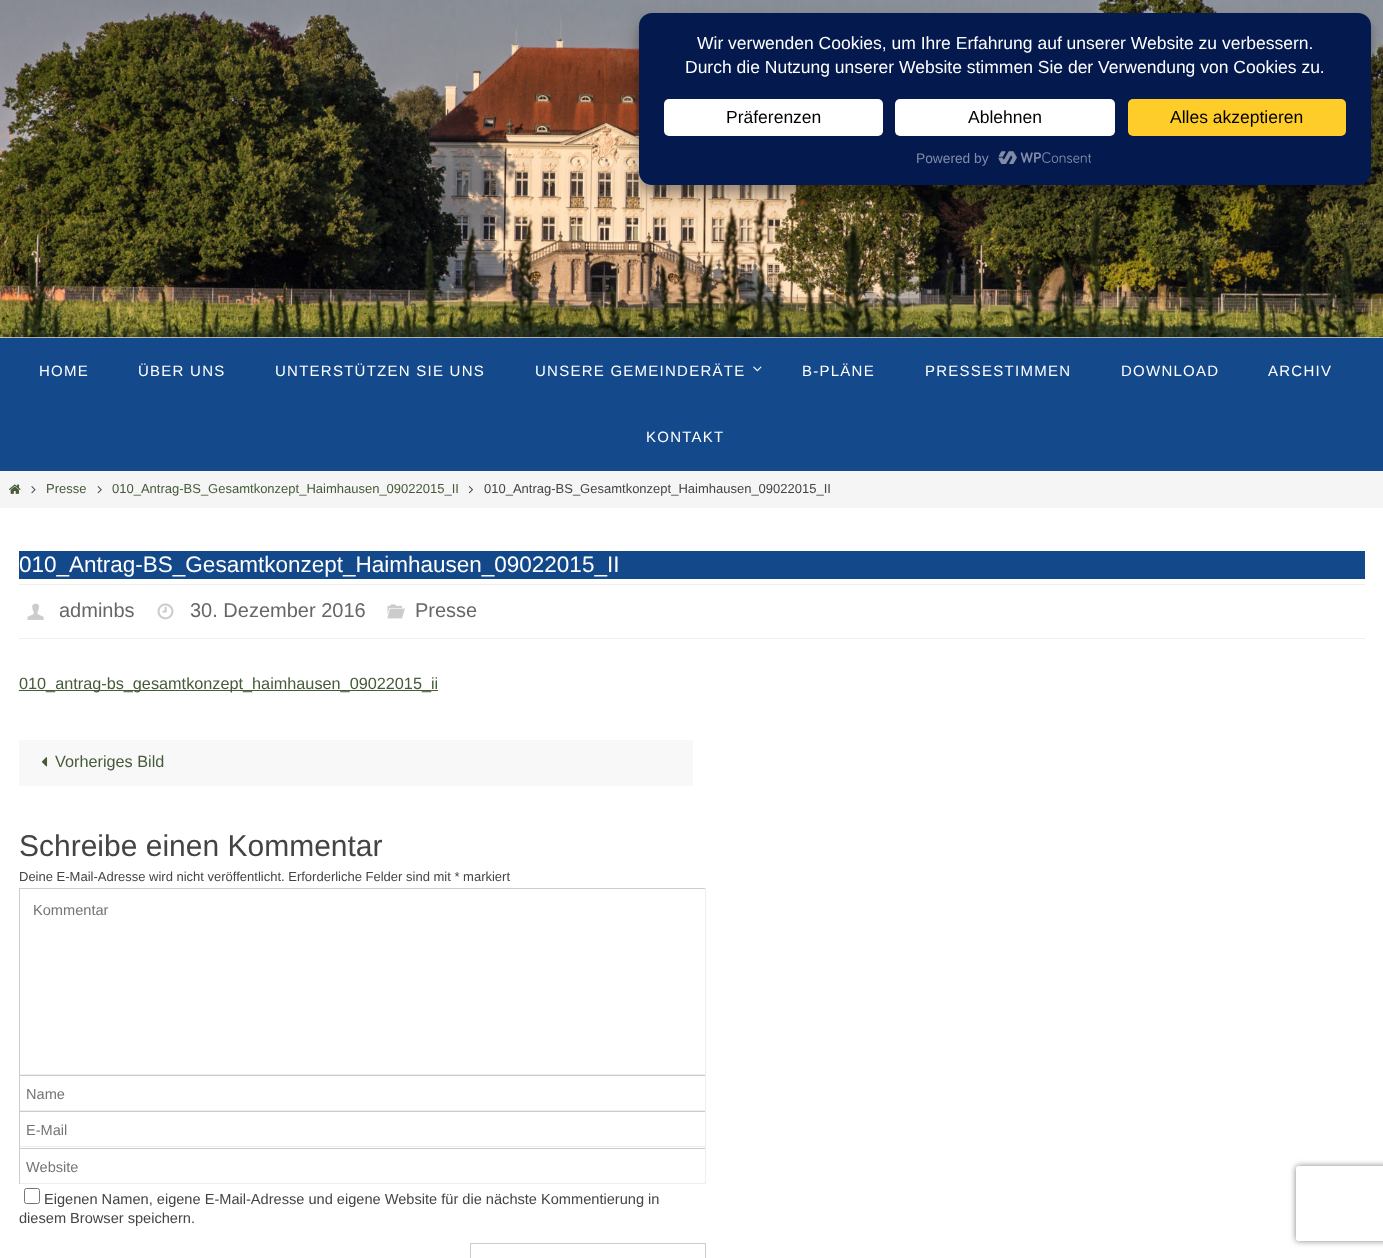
(async () => {
  const canvas = document.querySelector("canvas");
  canvas.width = 1383;
  canvas.height = 1258;
  const ctx = canvas.getContext("2d");
  ctx.miterLimit = 4;
  ctx.fontKerning = "normal";
  async function loadImage(src) {
    const img = new Image();
    img.src = src;
    await img.decode();
    return img;
  }
  let path;

  ctx.fillStyle = "#dae2e5";
  ctx.fillRect(0, 0, 1383, 1258);
  ctx.drawImage(await loadImage("img/2.png"), 0, 0, 1383, 338);
  ctx.fillStyle = "rgba(0, 0, 0, 0.23)";
  ctx.filter = "blur(4px)";
  ctx.beginPath();
  ctx.roundRect(639, 20, 732, 173, 13);
  ctx.fill();
  ctx.filter = "none";
  ctx.fillStyle = "rgba(0, 0, 0, 0.19)";
  ctx.filter = "blur(12.5px)";
  ctx.beginPath();
  ctx.roundRect(639, 25, 732, 173, 13);
  ctx.fill();
  ctx.filter = "none";
  ctx.fillStyle = "#04194e";
  ctx.beginPath();
  ctx.roundRect(639, 13, 732, 172, 13);
  ctx.fill();
  ctx.fillStyle = "#ffffff";
  ctx.beginPath();
  ctx.roundRect(664, 99, 219, 37, 5);
  ctx.fill();
  ctx.beginPath();
  ctx.roundRect(895, 99, 220, 37, 5);
  ctx.fill();
  ctx.fillStyle = "#ffcd2a";
  ctx.beginPath();
  ctx.roundRect(1128, 99, 218, 37, 5);
  ctx.fill();
  ctx.drawImage(await loadImage("img/1.png"), 998, 151, 94, 13);
  ctx.fillStyle = "#14498b";
  ctx.fillRect(0, 338, 1383, 133);
  ctx.drawImage(await loadImage("img/3.png"), 753, 366, 9, 6);
  ctx.fillStyle = "#f5f5f5";
  ctx.fillRect(0, 471, 1383, 37);
  ctx.drawImage(await loadImage("img/4.png"), 9, 484, 12, 10);
  ctx.drawImage(await loadImage("img/5.png"), 31, 486, 5, 8);
  ctx.drawImage(await loadImage("img/6.png"), 97, 486, 5, 8);
  ctx.drawImage(await loadImage("img/7.png"), 468, 486, 5, 8);
  for (const [x, y, w, h, color] of [
    [0, 508, 1383, 750, "#ffffff"],
    [19, 551, 1346, 28, "#13498a"],
    [19, 584, 1346, 1, "#eeeeee"],
    [19, 638, 1346, 1, "#eeeeee"],
  ]) {
    ctx.fillStyle = color;
    ctx.fillRect(x, y, w, h);
  }
  ctx.drawImage(await loadImage("img/8.png"), 27, 603, 17, 17);
  ctx.drawImage(await loadImage("img/9.png"), 157, 603, 17, 17);
  ctx.drawImage(await loadImage("img/10.png"), 387, 604, 18, 15);
  ctx.fillStyle = "#465b39";
  ctx.fillRect(19, 690, 419, 1);
  ctx.fillStyle = "#f8f8f8";
  ctx.fillRect(19, 740, 674, 46);
  ctx.drawImage(await loadImage("img/11.png"), 41, 757, 7, 10);
  for (const [x, y, w, h, color] of [
    [19, 888, 687, 1, "#cccccc"],
    [705, 888, 1, 187, "#eeeeee"],
    [19, 1074, 687, 1, "#eeeeee"],
    [19, 888, 1, 187, "#cccccc"],
    [19, 1075, 687, 1, "#cccccc"],
    [705, 1075, 1, 36, "#eeeeee"],
    [19, 1110, 687, 1, "#eeeeee"],
    [19, 1075, 1, 36, "#cccccc"],
    [19, 1111, 687, 1, "#cccccc"],
    [705, 1111, 1, 37, "#eeeeee"],
    [19, 1146, 687, 1, "#eeeeee"],
    [19, 1111, 1, 37, "#cccccc"],
    [19, 1148, 687, 1, "#cccccc"],
    [705, 1148, 1, 36, "#eeeeee"],
    [19, 1183, 687, 1, "#eeeeee"],
    [19, 1148, 1, 36, "#cccccc"],
  ]) {
    ctx.fillStyle = color;
    ctx.fillRect(x, y, w, h);
  }
  ctx.beginPath();
  ctx.roundRect(24.5, 1188.5, 15, 15, 2);
  ctx.strokeStyle = "#767676";
  ctx.stroke();
  ctx.strokeStyle = "#cccccc";
  ctx.strokeRect(470.5, 1243.5, 235, 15);
  ctx.save();
  path = new Path2D("M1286 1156H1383V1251H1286ZM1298.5 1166H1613.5C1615 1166 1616 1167 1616 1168.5V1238.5C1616 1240 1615 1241 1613.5 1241H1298.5C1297 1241 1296 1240 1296 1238.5V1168.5C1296 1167 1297 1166 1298.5 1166Z");
  ctx.clip(path, "evenodd");
  ctx.fillStyle = "#808080";
  ctx.filter = "blur(3px)";
  ctx.beginPath();
  ctx.roundRect(1296, 1166, 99, 75, 2.5);
  ctx.fill();
  ctx.filter = "none";
  ctx.restore();
  ctx.font = "17.5px Liberation Sans";
  ctx.fillStyle = "#ffffff";
  ctx.fillText("Wir verwenden Cookies, um Ihre Erfahrung auf unserer Website zu verbessern.", 697, 49);
  ctx.fillText("Durch die Nutzung unserer Website stimmen Sie der Verwendung von Cookies zu.", 685, 73);
  ctx.fillStyle = "#000000";
  for (const [text, x, y] of [
    ["Präferenzen", 726, 123],
    ["Ablehnen", 968, 123],
    ["Alles akzeptieren", 1170, 123],
  ]) {
    ctx.fillText(text, x, y);
  }
  ctx.font = "13.75px Liberation Sans";
  ctx.fillStyle = "#828ca7";
  ctx.fillText("Powered by", 916, 163);
  ctx.letterSpacing = "1.25px";
  ctx.font = "15px Liberation Sans";
  ctx.fillStyle = "#ffffff";
  for (const [text, x, y] of [
    ["HOME", 39, 376],
    ["ÜBER UNS", 138, 376],
    ["UNTERSTÜTZEN SIE UNS", 275, 376],
    ["UNSERE GEMEINDERÄTE", 535, 376],
    ["B-PLÄNE", 802, 376],
    ["PRESSESTIMMEN", 925, 376],
    ["DOWNLOAD", 1121, 376],
    ["ARCHIV", 1268, 376],
    ["KONTAKT", 646, 442],
  ]) {
    ctx.fillText(text, x, y);
  }
  ctx.letterSpacing = "0px";
  ctx.font = "13px Liberation Sans";
  ctx.fillStyle = "#465b39";
  ctx.fillText("Presse", 46, 493);
  ctx.fillText("010_Antrag-BS_Gesamtkonzept_Haimhausen_09022015_II", 112, 493);
  ctx.fillStyle = "#444444";
  ctx.fillText("010_Antrag-BS_Gesamtkonzept_Haimhausen_09022015_II", 484, 493);
  ctx.font = "22.5px Liberation Sans";
  ctx.fillStyle = "#ffffff";
  ctx.fillText("010_Antrag-BS_Gesamtkonzept_Haimhausen_09022015_II", 19, 572);
  ctx.font = "20px Liberation Sans";
  ctx.fillStyle = "#666666";
  for (const [text, x, y] of [
    ["adminbs", 59, 617],
    ["30. Dezember 2016", 190, 617],
    ["Presse", 415, 617],
  ]) {
    ctx.fillText(text, x, y);
  }
  ctx.font = "16.25px Liberation Sans";
  ctx.fillStyle = "#465b39";
  ctx.fillText("010_antrag-bs_gesamtkonzept_haimhausen_09022015_ii", 19, 689);
  ctx.fillText("Vorheriges Bild", 55, 767);
  ctx.font = "30px Liberation Sans";
  ctx.fillStyle = "#444444";
  ctx.fillText("Schreibe einen Kommentar", 19, 856);
  ctx.font = "13px Liberation Sans";
  ctx.fillText("Deine E-Mail-Adresse wird nicht veröffentlicht. Erforderliche Felder sind mit * markiert", 19, 881);
  ctx.font = "14.6px Liberation Sans";
  ctx.fillStyle = "#757575";
  for (const [text, x, y] of [
    ["Kommentar", 33, 915],
    ["Name", 26, 1099],
    ["E-Mail", 26, 1135],
    ["Website", 26, 1172],
  ]) {
    ctx.fillText(text, x, y);
  }
  ctx.fillStyle = "#444444";
  ctx.fillText("Eigenen Namen, eigene E-Mail-Adresse und eigene Website für die nächste Kommentierung in", 44, 1204);
  ctx.fillText("diesem Browser speichern.", 19, 1223);
})();
